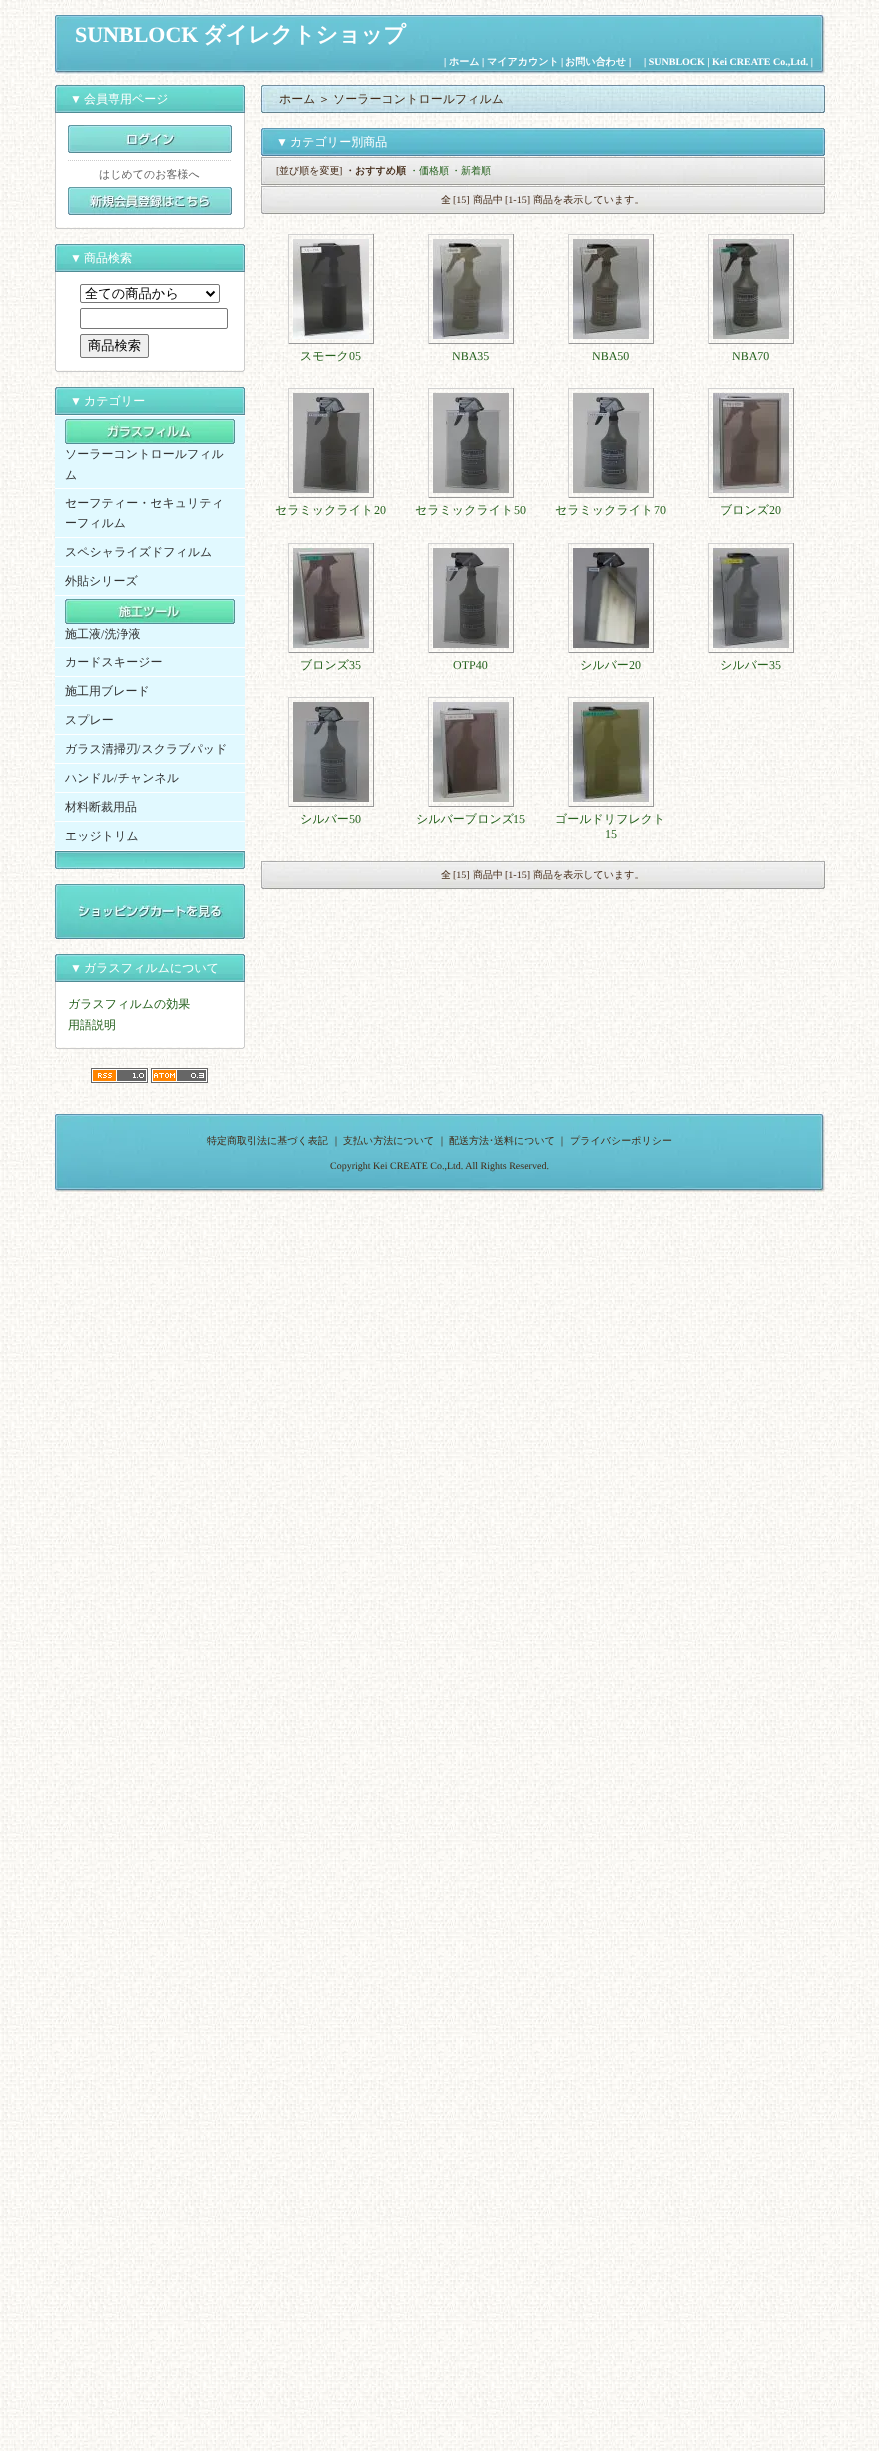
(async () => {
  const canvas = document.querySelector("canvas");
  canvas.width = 879;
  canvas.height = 2451;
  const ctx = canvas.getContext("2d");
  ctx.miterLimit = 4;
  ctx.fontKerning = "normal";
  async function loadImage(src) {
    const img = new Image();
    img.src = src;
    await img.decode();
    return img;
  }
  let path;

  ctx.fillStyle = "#ffffff";
  ctx.fillRect(0, 0, 879, 2451);
  ctx.drawImage(await loadImage("img/1.png"), 0, 0, 879, 2451);
  ctx.drawImage(await loadImage("img/2.png"), 55, 15, 770, 60);
  ctx.drawImage(await loadImage("img/3.png"), 55, 85, 190, 28);
  for (const [x, y, w, h, color] of [
    [56, 113, 188, 114, "#ffffff"],
    [244, 113, 1, 114, "#cccccc"],
    [55, 113, 1, 114, "#cccccc"],
  ]) {
    ctx.fillStyle = color;
    ctx.fillRect(x, y, w, h);
  }
  ctx.drawImage(await loadImage("img/4.png"), 68, 125, 164, 28);
  path = new Path2D("M68 160.5H232");
  ctx.strokeStyle = "#cccccc";
  ctx.setLineDash([1, 1]);
  ctx.stroke(path);
  ctx.drawImage(await loadImage("img/5.png"), 68, 187, 164, 28);
  ctx.drawImage(await loadImage("img/6.png"), 55, 227, 190, 2);
  ctx.drawImage(await loadImage("img/3.png"), 55, 244, 190, 28);
  for (const [x, y, w, h, color] of [
    [56, 272, 188, 98, "#ffffff"],
    [244, 272, 1, 98, "#cccccc"],
    [55, 272, 1, 98, "#cccccc"],
  ]) {
    ctx.fillStyle = color;
    ctx.fillRect(x, y, w, h);
  }
  ctx.beginPath();
  ctx.roundRect(80.5, 284.5, 139, 18, 1.5);
  ctx.strokeStyle = "#767676";
  ctx.setLineDash([]);
  ctx.stroke();
  path = new Path2D("M206.5 291.5L210.5 295.5L214.5 291.5");
  ctx.strokeStyle = "#000000";
  ctx.lineWidth = 2;
  ctx.stroke(path);
  ctx.beginPath();
  ctx.roundRect(80.5, 308.5, 147, 20, 1.5);
  ctx.strokeStyle = "#767676";
  ctx.lineWidth = 1;
  ctx.stroke();
  ctx.fillStyle = "#efefef";
  ctx.beginPath();
  ctx.roundRect(80.5, 334.5, 68, 23, 1.5);
  ctx.fill();
  ctx.stroke();
  ctx.drawImage(await loadImage("img/7.png"), 55, 370, 190, 2);
  ctx.fillStyle = "#e1f9ff";
  ctx.fillRect(55, 416, 190, 434);
  ctx.drawImage(await loadImage("img/3.png"), 55, 387, 190, 28);
  ctx.fillStyle = "#ffffff";
  ctx.fillRect(55, 415, 190, 1);
  ctx.fillRect(55, 488, 190, 1);
  ctx.drawImage(await loadImage("img/8.png"), 65, 419, 170, 25);
  for (const [x, y, w, h, color] of [
    [55, 537, 190, 1, "#ffffff"],
    [55, 566, 190, 1, "#ffffff"],
    [55, 595, 190, 1, "#ffffff"],
    [55, 647, 190, 1, "#ffffff"],
  ]) {
    ctx.fillStyle = color;
    ctx.fillRect(x, y, w, h);
  }
  ctx.drawImage(await loadImage("img/9.png"), 65, 599, 170, 25);
  for (const [x, y, w, h, color] of [
    [55, 676, 190, 1, "#ffffff"],
    [55, 705, 190, 1, "#ffffff"],
    [55, 734, 190, 1, "#ffffff"],
    [55, 763, 190, 1, "#ffffff"],
    [55, 792, 190, 1, "#ffffff"],
    [55, 821, 190, 1, "#ffffff"],
    [55, 850, 190, 1, "#ffffff"],
  ]) {
    ctx.fillStyle = color;
    ctx.fillRect(x, y, w, h);
  }
  ctx.drawImage(await loadImage("img/10.png"), 55, 851, 190, 18);
  ctx.drawImage(await loadImage("img/11.png"), 55, 884, 190, 55);
  ctx.drawImage(await loadImage("img/3.png"), 55, 954, 190, 28);
  for (const [x, y, w, h, color] of [
    [56, 982, 188, 65, "#ffffff"],
    [244, 982, 1, 65, "#cccccc"],
    [55, 982, 1, 65, "#cccccc"],
  ]) {
    ctx.fillStyle = color;
    ctx.fillRect(x, y, w, h);
  }
  ctx.drawImage(await loadImage("img/12.png"), 55, 1047, 190, 2);
  ctx.drawImage(await loadImage("img/13.png"), 91, 1068, 57, 15);
  ctx.drawImage(await loadImage("img/14.png"), 151, 1068, 57, 15);
  ctx.drawImage(await loadImage("img/15.png"), 261, 85, 564, 28);
  ctx.drawImage(await loadImage("img/16.png"), 261, 128, 564, 28);
  ctx.drawImage(await loadImage("img/17.png"), 261, 157, 564, 28);
  ctx.drawImage(await loadImage("img/18.png"), 261, 186, 564, 28);
  for (const [x, y, w, h, color] of [
    [288, 234, 86, 1, "#d1d1d1"],
    [373, 234, 1, 110, "#989898"],
    [288, 343, 86, 1, "#989898"],
    [288, 234, 1, 110, "#d1d1d1"],
  ]) {
    ctx.fillStyle = color;
    ctx.fillRect(x, y, w, h);
  }
  ctx.drawImage(await loadImage("img/19.png"), 293, 239, 76, 100);
  for (const [x, y, w, h, color] of [
    [428, 234, 86, 1, "#d1d1d1"],
    [513, 234, 1, 110, "#989898"],
    [428, 343, 86, 1, "#989898"],
    [428, 234, 1, 110, "#d1d1d1"],
  ]) {
    ctx.fillStyle = color;
    ctx.fillRect(x, y, w, h);
  }
  ctx.drawImage(await loadImage("img/20.png"), 433, 239, 76, 100);
  for (const [x, y, w, h, color] of [
    [568, 234, 86, 1, "#d1d1d1"],
    [653, 234, 1, 110, "#989898"],
    [568, 343, 86, 1, "#989898"],
    [568, 234, 1, 110, "#d1d1d1"],
  ]) {
    ctx.fillStyle = color;
    ctx.fillRect(x, y, w, h);
  }
  ctx.drawImage(await loadImage("img/21.png"), 573, 239, 76, 100);
  for (const [x, y, w, h, color] of [
    [708, 234, 86, 1, "#d1d1d1"],
    [793, 234, 1, 110, "#989898"],
    [708, 343, 86, 1, "#989898"],
    [708, 234, 1, 110, "#d1d1d1"],
  ]) {
    ctx.fillStyle = color;
    ctx.fillRect(x, y, w, h);
  }
  ctx.drawImage(await loadImage("img/22.png"), 713, 239, 76, 100);
  for (const [x, y, w, h, color] of [
    [288, 388, 86, 1, "#d1d1d1"],
    [373, 388, 1, 110, "#989898"],
    [288, 497, 86, 1, "#989898"],
    [288, 388, 1, 110, "#d1d1d1"],
  ]) {
    ctx.fillStyle = color;
    ctx.fillRect(x, y, w, h);
  }
  ctx.drawImage(await loadImage("img/23.png"), 293, 393, 76, 100);
  for (const [x, y, w, h, color] of [
    [428, 388, 86, 1, "#d1d1d1"],
    [513, 388, 1, 110, "#989898"],
    [428, 497, 86, 1, "#989898"],
    [428, 388, 1, 110, "#d1d1d1"],
  ]) {
    ctx.fillStyle = color;
    ctx.fillRect(x, y, w, h);
  }
  ctx.drawImage(await loadImage("img/24.png"), 433, 393, 76, 100);
  for (const [x, y, w, h, color] of [
    [568, 388, 86, 1, "#d1d1d1"],
    [653, 388, 1, 110, "#989898"],
    [568, 497, 86, 1, "#989898"],
    [568, 388, 1, 110, "#d1d1d1"],
  ]) {
    ctx.fillStyle = color;
    ctx.fillRect(x, y, w, h);
  }
  ctx.drawImage(await loadImage("img/25.png"), 573, 393, 76, 100);
  for (const [x, y, w, h, color] of [
    [708, 388, 86, 1, "#d1d1d1"],
    [793, 388, 1, 110, "#989898"],
    [708, 497, 86, 1, "#989898"],
    [708, 388, 1, 110, "#d1d1d1"],
  ]) {
    ctx.fillStyle = color;
    ctx.fillRect(x, y, w, h);
  }
  ctx.drawImage(await loadImage("img/26.png"), 713, 393, 76, 100);
  for (const [x, y, w, h, color] of [
    [288, 543, 86, 1, "#d1d1d1"],
    [373, 543, 1, 110, "#989898"],
    [288, 652, 86, 1, "#989898"],
    [288, 543, 1, 110, "#d1d1d1"],
  ]) {
    ctx.fillStyle = color;
    ctx.fillRect(x, y, w, h);
  }
  ctx.drawImage(await loadImage("img/27.png"), 293, 548, 76, 100);
  for (const [x, y, w, h, color] of [
    [428, 543, 86, 1, "#d1d1d1"],
    [513, 543, 1, 110, "#989898"],
    [428, 652, 86, 1, "#989898"],
    [428, 543, 1, 110, "#d1d1d1"],
  ]) {
    ctx.fillStyle = color;
    ctx.fillRect(x, y, w, h);
  }
  ctx.drawImage(await loadImage("img/28.png"), 433, 548, 76, 100);
  for (const [x, y, w, h, color] of [
    [568, 543, 86, 1, "#d1d1d1"],
    [653, 543, 1, 110, "#989898"],
    [568, 652, 86, 1, "#989898"],
    [568, 543, 1, 110, "#d1d1d1"],
  ]) {
    ctx.fillStyle = color;
    ctx.fillRect(x, y, w, h);
  }
  ctx.drawImage(await loadImage("img/29.png"), 573, 548, 76, 100);
  for (const [x, y, w, h, color] of [
    [708, 543, 86, 1, "#d1d1d1"],
    [793, 543, 1, 110, "#989898"],
    [708, 652, 86, 1, "#989898"],
    [708, 543, 1, 110, "#d1d1d1"],
  ]) {
    ctx.fillStyle = color;
    ctx.fillRect(x, y, w, h);
  }
  ctx.drawImage(await loadImage("img/30.png"), 713, 548, 76, 100);
  for (const [x, y, w, h, color] of [
    [288, 697, 86, 1, "#d1d1d1"],
    [373, 697, 1, 110, "#989898"],
    [288, 806, 86, 1, "#989898"],
    [288, 697, 1, 110, "#d1d1d1"],
  ]) {
    ctx.fillStyle = color;
    ctx.fillRect(x, y, w, h);
  }
  ctx.drawImage(await loadImage("img/31.png"), 293, 702, 76, 100);
  for (const [x, y, w, h, color] of [
    [428, 697, 86, 1, "#d1d1d1"],
    [513, 697, 1, 110, "#989898"],
    [428, 806, 86, 1, "#989898"],
    [428, 697, 1, 110, "#d1d1d1"],
  ]) {
    ctx.fillStyle = color;
    ctx.fillRect(x, y, w, h);
  }
  ctx.drawImage(await loadImage("img/32.png"), 433, 702, 76, 100);
  for (const [x, y, w, h, color] of [
    [568, 697, 86, 1, "#d1d1d1"],
    [653, 697, 1, 110, "#989898"],
    [568, 806, 86, 1, "#989898"],
    [568, 697, 1, 110, "#d1d1d1"],
  ]) {
    ctx.fillStyle = color;
    ctx.fillRect(x, y, w, h);
  }
  ctx.drawImage(await loadImage("img/33.png"), 573, 702, 76, 100);
  ctx.drawImage(await loadImage("img/18.png"), 261, 861, 564, 28);
  ctx.drawImage(await loadImage("img/34.png"), 55, 1114, 770, 79);
  ctx.font = "bold 22px Liberation Serif";
  ctx.fillStyle = "#ffffff";
  ctx.fillText("SUNBLOCK", 75, 42);
  ctx.font = "bold 22px WenQuanYi Zen Hei";
  ctx.fillText("ダイレクトショップ", 203, 42);
  ctx.font = "bold 10px Liberation Serif";
  ctx.fillText("|", 444, 65);
  ctx.font = "bold 10px WenQuanYi Zen Hei";
  ctx.fillText("ホーム", 449, 65);
  ctx.font = "bold 10px Liberation Serif";
  ctx.fillText("|", 482, 65);
  ctx.font = "bold 10px WenQuanYi Zen Hei";
  ctx.fillText("マイアカウント", 487, 65);
  ctx.font = "bold 10px Liberation Serif";
  ctx.fillText("|", 561, 65);
  ctx.font = "bold 10px WenQuanYi Zen Hei";
  ctx.fillText("お問い合わせ", 565, 65);
  ctx.font = "bold 10px Liberation Serif";
  ctx.fillText("|", 629, 65);
  ctx.fillText("| SUNBLOCK | Kei CREATE Co.,Ltd. |", 644, 65);
  ctx.font = "12px Liberation Serif";
  ctx.fillText("▼", 70, 103);
  ctx.font = "500 12px WenQuanYi Zen Hei";
  ctx.fillText("会員専用ページ", 84, 103);
  ctx.font = "500 11px WenQuanYi Zen Hei";
  ctx.fillStyle = "#666666";
  ctx.fillText("はじめてのお客様へ", 99, 178);
  ctx.font = "12px Liberation Serif";
  ctx.fillStyle = "#ffffff";
  ctx.fillText("▼", 70, 262);
  ctx.font = "500 12px WenQuanYi Zen Hei";
  ctx.fillText("商品検索", 84, 262);
  ctx.font = "500 13.25px WenQuanYi Zen Hei";
  ctx.fillStyle = "#000000";
  ctx.fillText("全ての商品から", 85, 298);
  ctx.fillText("商品検索", 88, 350);
  ctx.font = "12px Liberation Serif";
  ctx.fillStyle = "#ffffff";
  ctx.fillText("▼", 70, 405);
  ctx.font = "500 12px WenQuanYi Zen Hei";
  ctx.fillText("カテゴリー", 84, 405);
  ctx.fillStyle = "#333333";
  for (const [text, x, y] of [
    ["ソーラーコントロールフィル", 65, 458],
    ["ム", 65, 479],
    ["セーフティー・セキュリティ", 65, 507],
    ["ーフィルム", 65, 527],
    ["スペシャライズドフィルム", 65, 556],
    ["外貼シリーズ", 65, 585],
    ["施工液 洗浄液", 65, 638],
  ]) {
    ctx.fillText(text, x, y);
  }
  ctx.font = "12px Liberation Serif";
  ctx.fillText("/", 101, 638);
  ctx.font = "500 12px WenQuanYi Zen Hei";
  for (const [text, x, y] of [
    ["カードスキージー", 65, 666],
    ["施工用ブレード", 65, 695],
    ["スプレー", 65, 724],
    ["ガラス清掃刃 スクラブパッド", 65, 753],
  ]) {
    ctx.fillText(text, x, y);
  }
  ctx.font = "12px Liberation Serif";
  ctx.fillText("/", 137, 753);
  ctx.font = "500 12px WenQuanYi Zen Hei";
  ctx.fillText("ハンドル チャンネル", 65, 782);
  ctx.font = "12px Liberation Serif";
  ctx.fillText("/", 114, 782);
  ctx.font = "500 12px WenQuanYi Zen Hei";
  ctx.fillText("材料断裁用品", 65, 811);
  ctx.fillText("エッジトリム", 65, 840);
  ctx.font = "12px Liberation Serif";
  ctx.fillStyle = "#ffffff";
  ctx.fillText("▼", 70, 972);
  ctx.font = "500 12px WenQuanYi Zen Hei";
  ctx.fillText("ガラスフィルムについて", 84, 972);
  ctx.fillStyle = "#26621e";
  ctx.fillText("ガラスフィルムの効果", 68, 1008);
  ctx.fillText("用語説明", 68, 1029);
  ctx.fillStyle = "#432a16";
  for (const [text, x, y] of [
    ["ホーム", 279, 103],
    ["＞", 318, 103],
    ["ソーラーコントロールフィルム", 333, 103],
  ]) {
    ctx.fillText(text, x, y);
  }
  ctx.font = "12px Liberation Serif";
  ctx.fillStyle = "#ffffff";
  ctx.fillText("▼", 276, 146);
  ctx.font = "500 12px WenQuanYi Zen Hei";
  ctx.fillText("カテゴリー別商品", 290, 146);
  ctx.font = "10px Liberation Serif";
  ctx.fillStyle = "#432a16";
  ctx.fillText("[", 276, 174);
  ctx.font = "500 10px WenQuanYi Zen Hei";
  ctx.fillText("並び順を変更", 279, 174);
  ctx.font = "10px Liberation Serif";
  ctx.fillText("]", 339, 174);
  ctx.font = "bold 10px WenQuanYi Zen Hei";
  ctx.fillText("・おすすめ順", 345, 174);
  ctx.font = "500 10px WenQuanYi Zen Hei";
  ctx.fillStyle = "#26621e";
  ctx.fillText("・価格順", 409, 174);
  ctx.fillText("・新着順", 451, 174);
  ctx.fillStyle = "#432a16";
  ctx.fillText("全", 441, 203);
  ctx.font = "10px Liberation Serif";
  ctx.fillText("[15]", 453, 203);
  ctx.font = "500 10px WenQuanYi Zen Hei";
  ctx.fillText("商品中", 473, 203);
  ctx.font = "10px Liberation Serif";
  ctx.fillText("[1-15]", 505, 203);
  ctx.font = "500 10px WenQuanYi Zen Hei";
  ctx.fillText("商品を表示しています。", 533, 203);
  ctx.font = "500 12px WenQuanYi Zen Hei";
  ctx.fillStyle = "#26621e";
  ctx.fillText("スモーク", 300, 360);
  ctx.font = "12px Liberation Serif";
  for (const [text, x, y] of [
    ["05", 349, 360],
    ["NBA35", 452, 360],
    ["NBA50", 592, 360],
    ["NBA70", 732, 360],
  ]) {
    ctx.fillText(text, x, y);
  }
  ctx.font = "500 12px WenQuanYi Zen Hei";
  ctx.fillText("セラミックライト", 275, 514);
  ctx.font = "12px Liberation Serif";
  ctx.fillText("20", 374, 514);
  ctx.font = "500 12px WenQuanYi Zen Hei";
  ctx.fillText("セラミックライト", 415, 514);
  ctx.font = "12px Liberation Serif";
  ctx.fillText("50", 514, 514);
  ctx.font = "500 12px WenQuanYi Zen Hei";
  ctx.fillText("セラミックライト", 555, 514);
  ctx.font = "12px Liberation Serif";
  ctx.fillText("70", 654, 514);
  ctx.font = "500 12px WenQuanYi Zen Hei";
  ctx.fillText("ブロンズ", 720, 514);
  ctx.font = "12px Liberation Serif";
  ctx.fillText("20", 769, 514);
  ctx.font = "500 12px WenQuanYi Zen Hei";
  ctx.fillText("ブロンズ", 300, 669);
  ctx.font = "12px Liberation Serif";
  ctx.fillText("35", 349, 669);
  ctx.fillText("OTP40", 453, 669);
  ctx.font = "500 12px WenQuanYi Zen Hei";
  ctx.fillText("シルバー", 580, 669);
  ctx.font = "12px Liberation Serif";
  ctx.fillText("20", 629, 669);
  ctx.font = "500 12px WenQuanYi Zen Hei";
  ctx.fillText("シルバー", 720, 669);
  ctx.font = "12px Liberation Serif";
  ctx.fillText("35", 769, 669);
  ctx.font = "500 12px WenQuanYi Zen Hei";
  ctx.fillText("シルバー", 300, 823);
  ctx.font = "12px Liberation Serif";
  ctx.fillText("50", 349, 823);
  ctx.font = "500 12px WenQuanYi Zen Hei";
  ctx.fillText("シルバーブロンズ", 416, 823);
  ctx.font = "12px Liberation Serif";
  ctx.fillText("15", 513, 823);
  ctx.font = "500 12px WenQuanYi Zen Hei";
  ctx.fillText("ゴールドリフレクト", 555, 823);
  ctx.font = "12px Liberation Serif";
  ctx.fillText("15", 605, 838);
  ctx.font = "500 10px WenQuanYi Zen Hei";
  ctx.fillStyle = "#432a16";
  ctx.fillText("全", 441, 878);
  ctx.font = "10px Liberation Serif";
  ctx.fillText("[15]", 453, 878);
  ctx.font = "500 10px WenQuanYi Zen Hei";
  ctx.fillText("商品中", 473, 878);
  ctx.font = "10px Liberation Serif";
  ctx.fillText("[1-15]", 505, 878);
  ctx.font = "500 10px WenQuanYi Zen Hei";
  for (const [text, x, y] of [
    ["商品を表示しています。", 533, 878],
    ["特定商取引法に基づく表記", 207, 1144],
    ["｜", 331, 1144],
    ["支払い方法について", 343, 1144],
    ["｜", 437, 1144],
    ["配送方法", 449, 1144],
  ]) {
    ctx.fillText(text, x, y);
  }
  ctx.font = "10px IPAPGothic";
  ctx.fillText("･", 489, 1144);
  ctx.font = "500 10px WenQuanYi Zen Hei";
  for (const [text, x, y] of [
    ["送料について", 494, 1144],
    ["｜", 557, 1144],
    ["プライバシーポリシー", 570, 1144],
  ]) {
    ctx.fillText(text, x, y);
  }
  ctx.font = "10px Liberation Serif";
  ctx.fillText("Copyright Kei CREATE Co.,Ltd. All Rights Reserved.", 330, 1169);
})();
